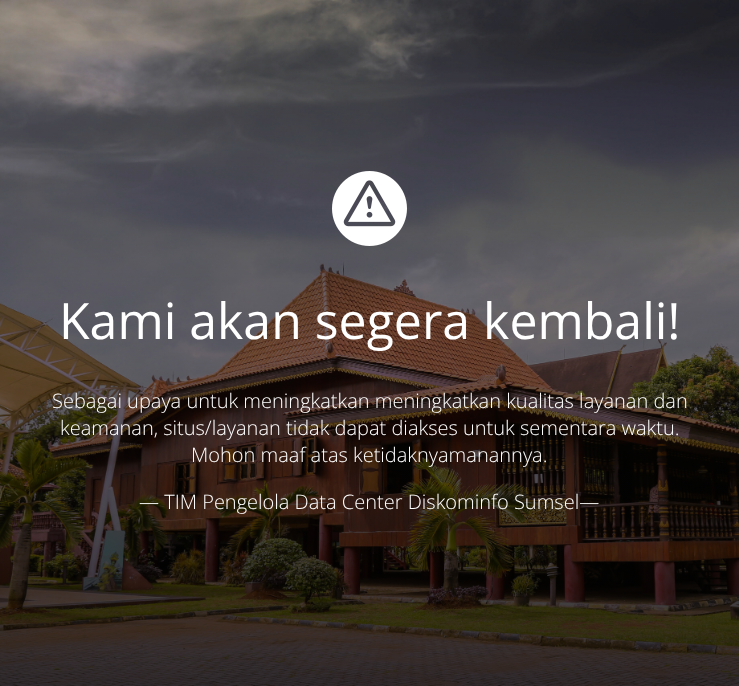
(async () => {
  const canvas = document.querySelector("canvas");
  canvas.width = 739;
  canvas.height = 686;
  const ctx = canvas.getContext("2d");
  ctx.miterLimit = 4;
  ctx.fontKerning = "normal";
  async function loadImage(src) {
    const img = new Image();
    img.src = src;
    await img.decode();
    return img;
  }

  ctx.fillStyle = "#ffffff";
  ctx.fillRect(0, 0, 739, 686);
  ctx.drawImage(await loadImage("img/1.png"), 0, 0, 739, 686);
  ctx.drawImage(await loadImage("img/2.png"), 332, 171, 75, 75);
  ctx.font = "50px Open Sans";
  ctx.fillText("Kami akan segera kembali!", 59, 339);
  ctx.font = "300 20px Open Sans";
  for (const [text, x, y] of [
    ["Sebagai upaya untuk meningkatkan meningkatkan kualitas layanan dan", 52, 408],
    ["keamanan, situs/layanan tidak dapat diakses untuk sementara waktu.", 60, 435],
    ["Mohon maaf atas ketidaknyamanannya.", 191, 462],
    ["— TIM Pengelola Data Center Diskominfo Sumsel—", 139, 509],
  ]) {
    ctx.fillText(text, x, y);
  }
})();
